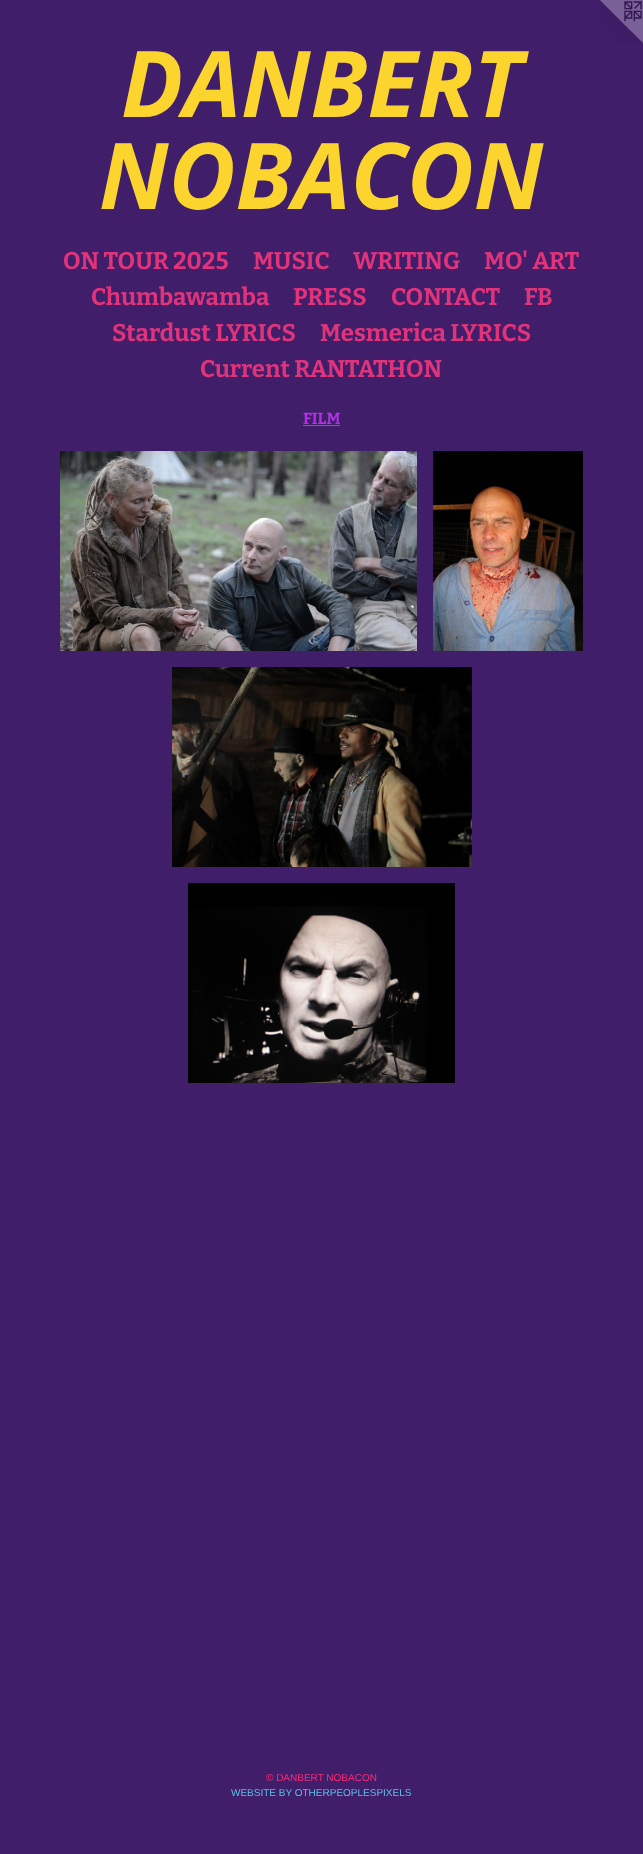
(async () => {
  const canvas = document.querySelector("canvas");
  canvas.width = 643;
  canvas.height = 1854;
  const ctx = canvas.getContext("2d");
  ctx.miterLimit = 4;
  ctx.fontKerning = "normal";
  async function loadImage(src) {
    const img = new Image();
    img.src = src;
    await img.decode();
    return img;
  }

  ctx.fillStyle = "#401e6a";
  ctx.fillRect(0, 0, 643, 1854);
  ctx.drawImage(await loadImage("img/1.png"), 600, 0, 43, 43);
  ctx.fillStyle = "#b133e1";
  ctx.fillRect(303, 425, 37, 1);
  ctx.drawImage(await loadImage("img/2.png"), 60, 451, 357, 200);
  ctx.drawImage(await loadImage("img/3.png"), 433, 451, 150, 200);
  ctx.drawImage(await loadImage("img/4.png"), 172, 667, 300, 200);
  ctx.drawImage(await loadImage("img/5.png"), 188, 883, 267, 200);
  ctx.font = "italic bold 92px Open Sans";
  ctx.fillStyle = "#fbd42d";
  ctx.fillText("DANBERT", 121, 117);
  ctx.fillText("NOBACON", 99, 209);
  ctx.font = "100 24px Bitter";
  ctx.fillStyle = "#e1337a";
  for (const [text, x, y] of [
    ["ON TOUR 2025", 63, 269],
    ["MUSIC", 253, 269],
    ["WRITING", 353, 269],
    ["MO' ART", 484, 269],
    ["Chumbawamba", 91, 305],
    ["PRESS", 293, 305],
    ["CONTACT", 391, 305],
    ["FB", 524, 305],
    ["Stardust LYRICS", 112, 341],
    ["Mesmerica LYRICS", 320, 341],
    ["Current RANTATHON", 200, 377],
  ]) {
    ctx.fillText(text, x, y);
  }
  ctx.font = "100 16px Bitter";
  ctx.fillStyle = "#b133e1";
  ctx.fillText("FILM", 303, 424);
  ctx.font = "10px Liberation Sans";
  ctx.fillStyle = "#fc2c78";
  ctx.fillText("© DANBERT NOBACON", 266, 1781);
  ctx.fillStyle = "#5dbfea";
  ctx.fillText("WEBSITE BY OTHERPEOPLESPIXELS", 231, 1796);
})();
